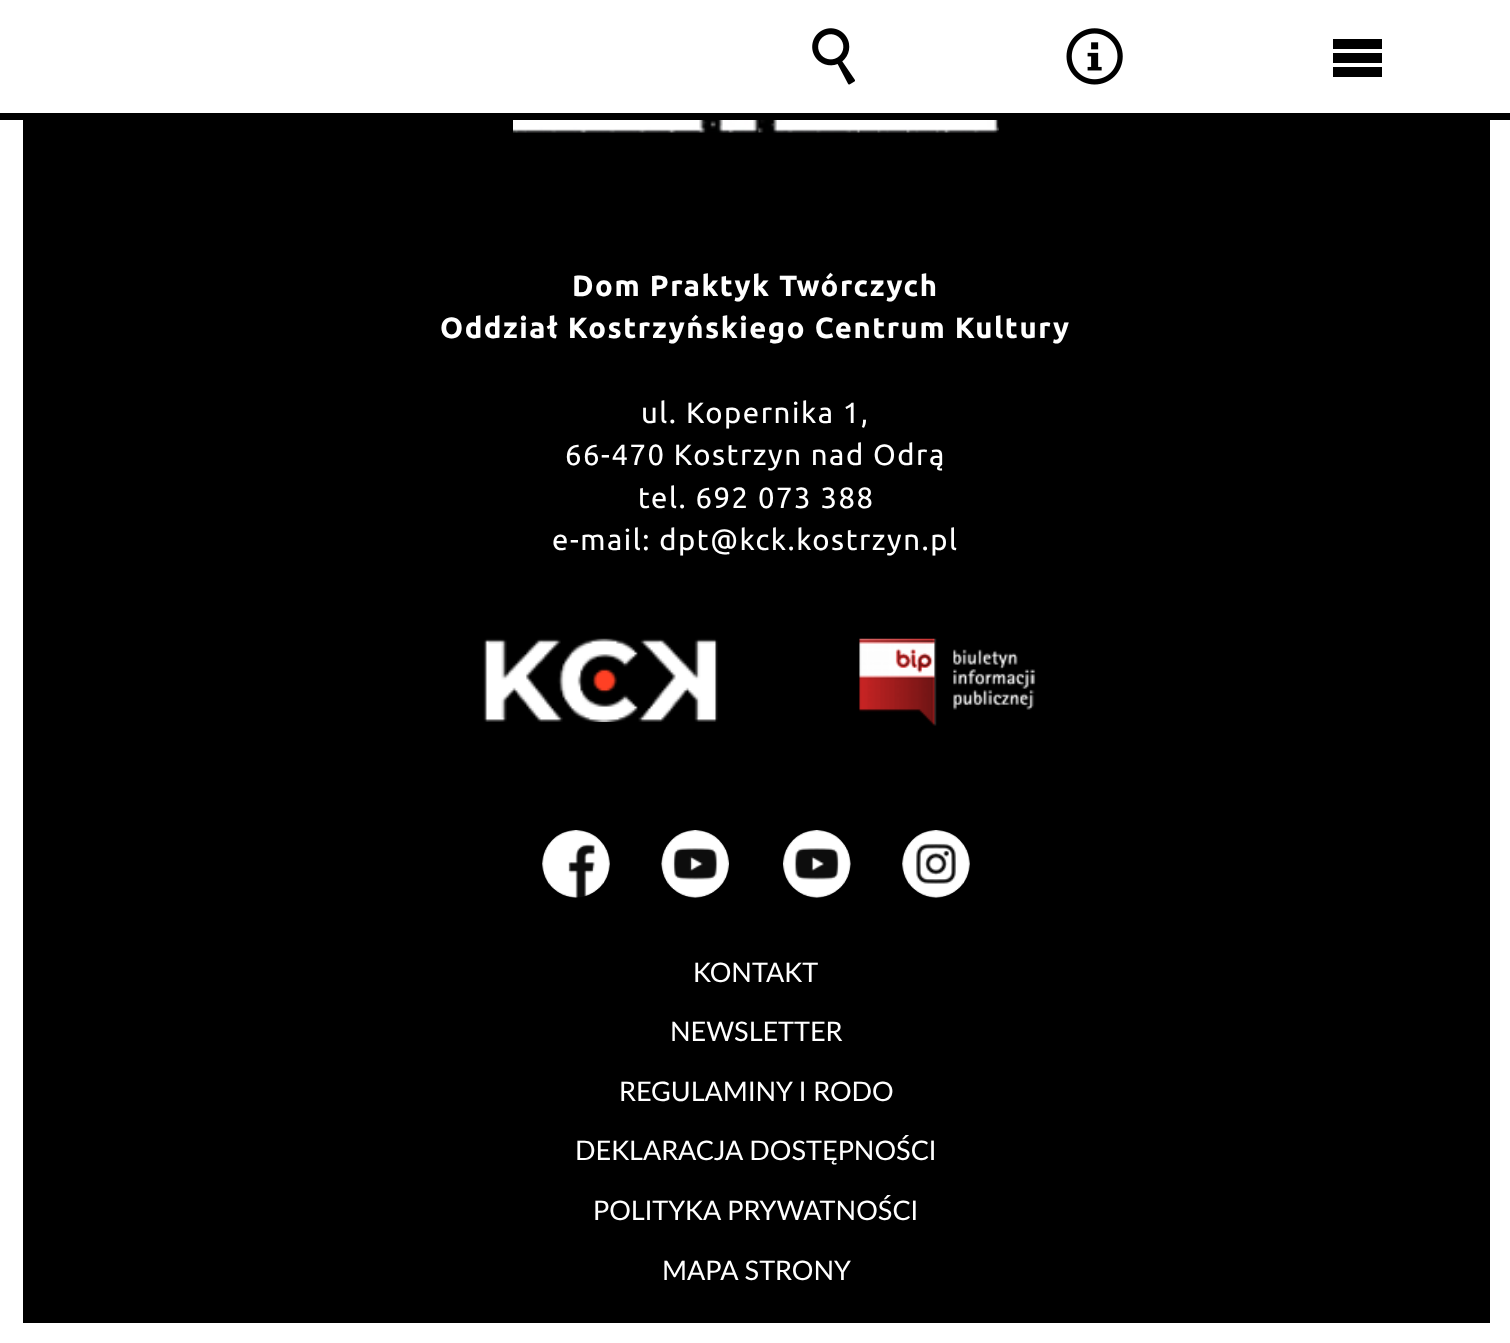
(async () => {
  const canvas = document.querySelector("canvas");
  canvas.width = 1510;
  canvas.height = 1343;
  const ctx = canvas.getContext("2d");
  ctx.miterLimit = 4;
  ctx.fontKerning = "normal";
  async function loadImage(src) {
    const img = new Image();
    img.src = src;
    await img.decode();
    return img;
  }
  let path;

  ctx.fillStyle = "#ffffff";
  ctx.fillRect(0, 0, 1510, 1343);
  ctx.fillStyle = "#000000";
  ctx.fillRect(0, 113, 1510, 7);
  ctx.drawImage(await loadImage("img/1.png"), 812, 28, 43, 57);
  ctx.drawImage(await loadImage("img/2.png"), 1066, 28, 57, 57);
  path = new Path2D("M1333 39V49H1382V39ZM1333 53V63H1382V53ZM1333 67V77H1382V67Z");
  ctx.fill(path);
  ctx.fillRect(23, 120, 1467, 1203);
  ctx.drawImage(await loadImage("img/3.png"), 513, 120, 486, 13);
  ctx.drawImage(await loadImage("img/4.png"), 483, 638, 235, 84);
  ctx.drawImage(await loadImage("img/5.png"), 859, 638, 177, 88);
  ctx.drawImage(await loadImage("img/6.png"), 542, 830, 68, 68);
  ctx.drawImage(await loadImage("img/7.png"), 661, 830, 68, 68);
  ctx.drawImage(await loadImage("img/8.png"), 783, 830, 68, 68);
  ctx.drawImage(await loadImage("img/9.png"), 902, 830, 68, 68);
  ctx.letterSpacing = "1.55px";
  ctx.font = "bold 29.25px Ubuntu";
  ctx.fillStyle = "#ffffff";
  ctx.fillText("Dom Praktyk Twórczych", 572, 296);
  ctx.fillText("Oddział Kostrzyńskiego Centrum Kultury", 440, 338);
  ctx.font = "29.25px Ubuntu";
  for (const [text, x, y] of [
    ["ul. Kopernika 1,", 641, 423],
    ["66-470 Kostrzyn nad Odrą", 565, 465],
    ["tel. 692 073 388", 638, 508],
    ["e-mail: dpt@kck.kostrzyn.pl", 552, 550],
  ]) {
    ctx.fillText(text, x, y);
  }
  ctx.letterSpacing = "0px";
  ctx.font = "27px Lato";
  for (const [text, x, y] of [
    ["KONTAKT", 693, 982],
    ["NEWSLETTER", 670, 1041],
    ["REGULAMINY I RODO", 619, 1101],
    ["DEKLARACJA DOSTĘPNOŚCI", 575, 1160],
    ["POLITYKA PRYWATNOŚCI", 593, 1220],
    ["MAPA STRONY", 662, 1280],
  ]) {
    ctx.fillText(text, x, y);
  }
})();
